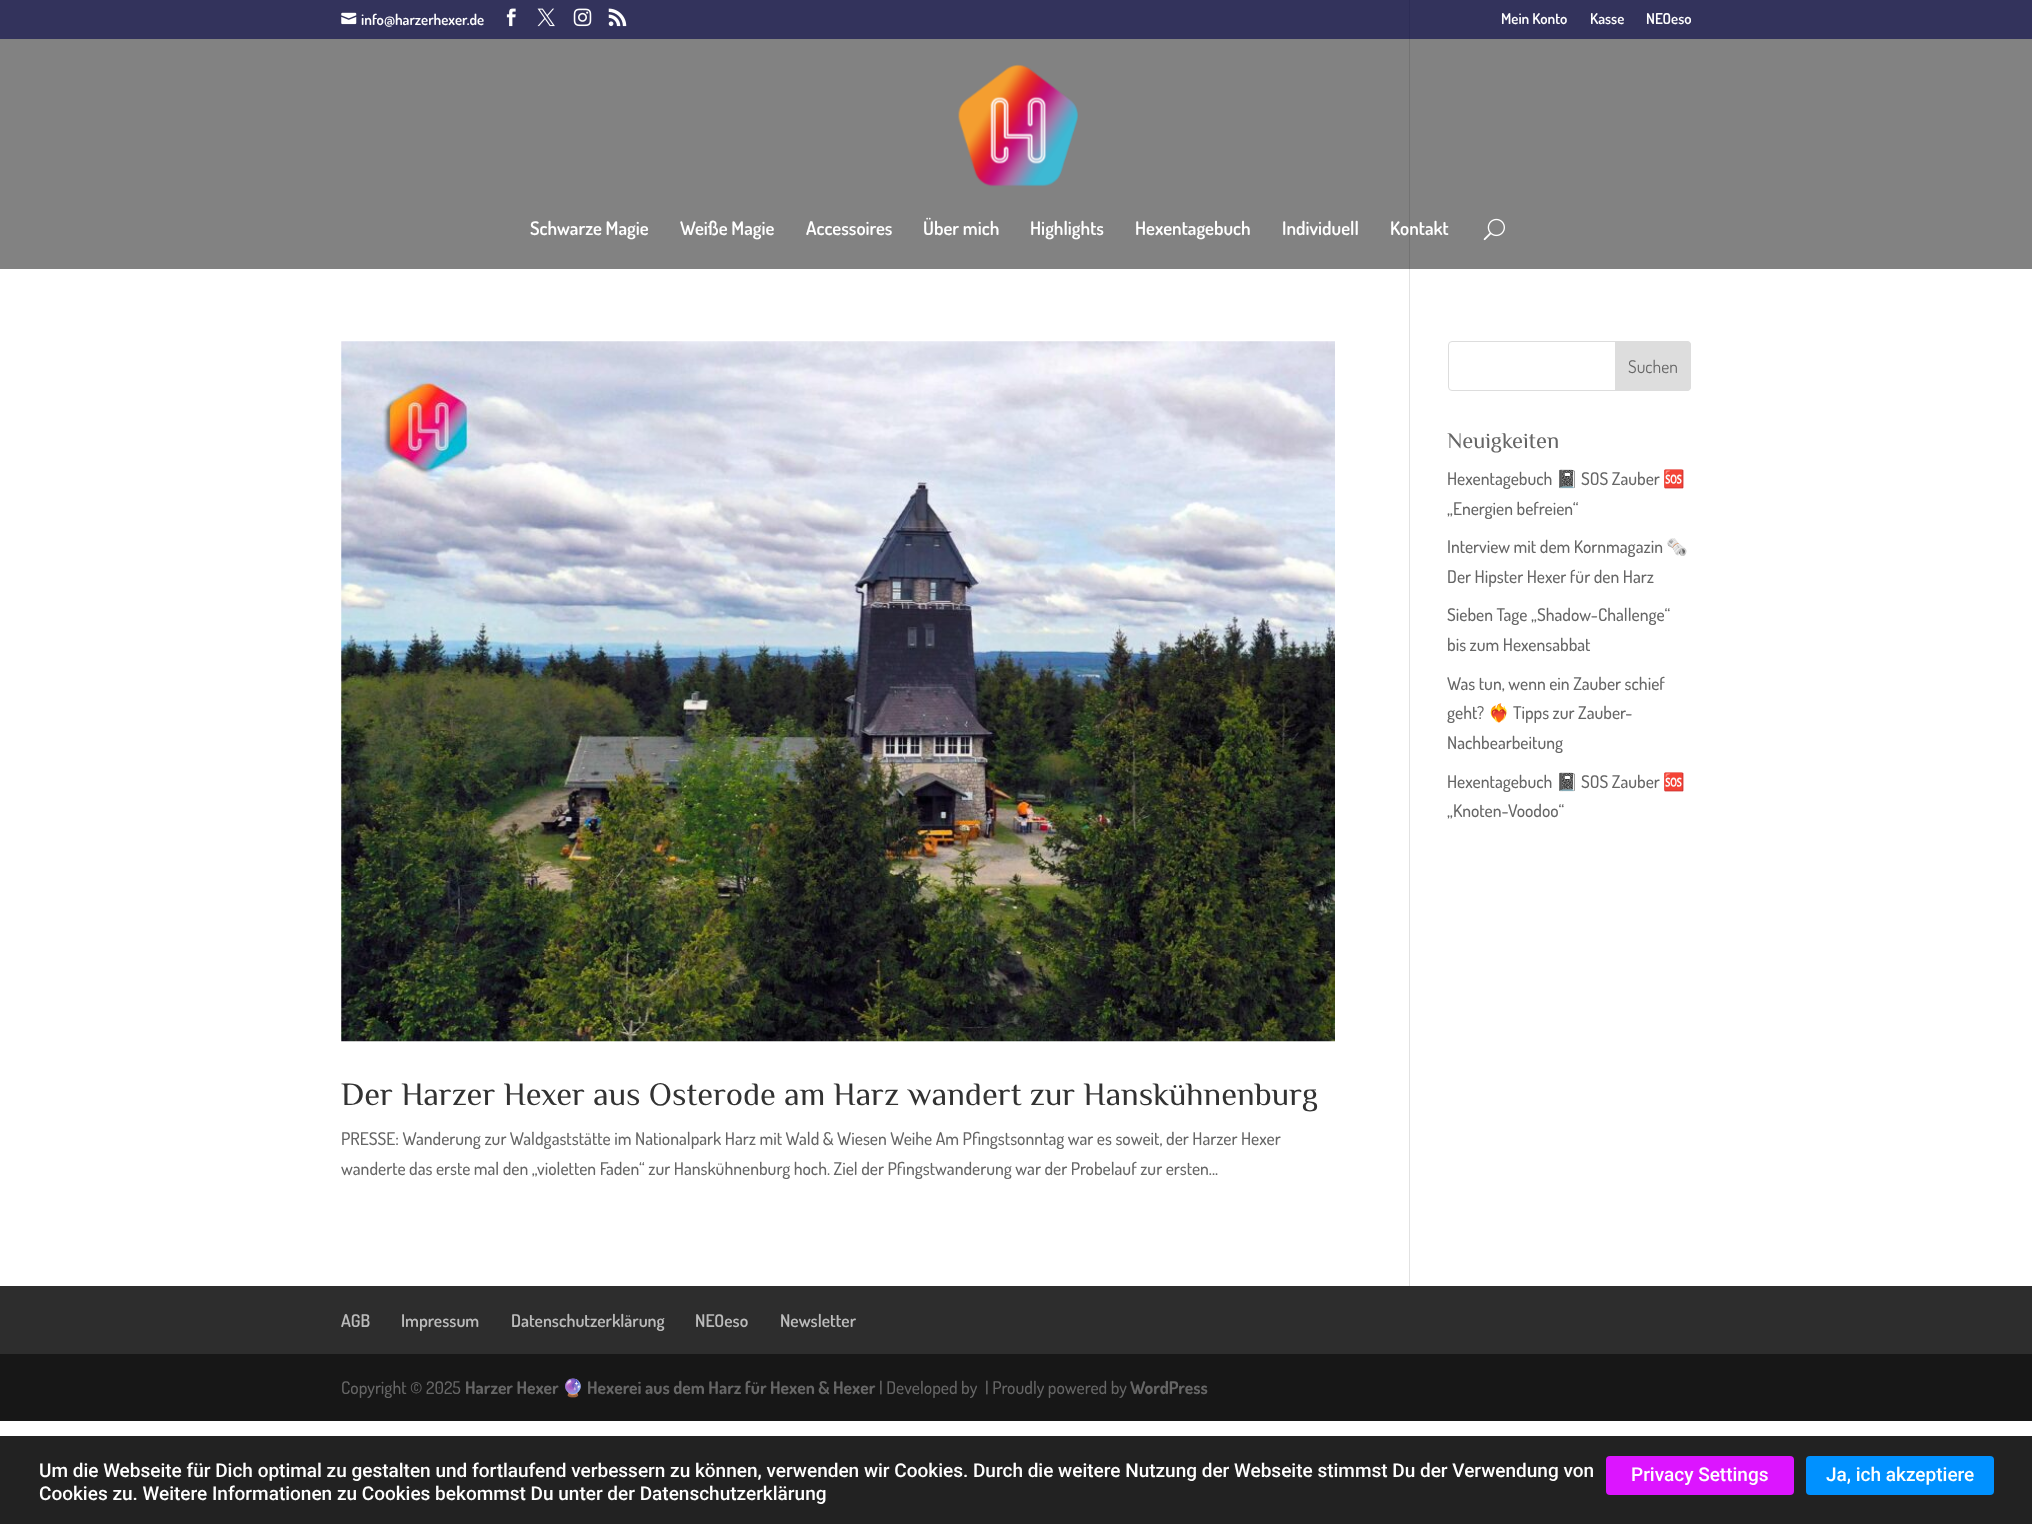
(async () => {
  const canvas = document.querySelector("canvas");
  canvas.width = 2032;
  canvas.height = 1524;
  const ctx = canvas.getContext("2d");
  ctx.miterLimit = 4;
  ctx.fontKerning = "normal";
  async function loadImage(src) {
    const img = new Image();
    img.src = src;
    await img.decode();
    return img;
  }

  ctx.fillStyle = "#ffffff";
  ctx.fillRect(0, 0, 2032, 1524);
  ctx.fillStyle = "#33335c";
  ctx.fillRect(0, 0, 2032, 39);
  ctx.fillStyle = "#828282";
  ctx.fillRect(0, 39, 2032, 230);
  ctx.drawImage(await loadImage("img/1.png"), 341, 12, 16, 13);
  ctx.drawImage(await loadImage("img/2.png"), 506, 8, 10, 19);
  ctx.drawImage(await loadImage("img/3.png"), 537, 8, 18, 19);
  ctx.drawImage(await loadImage("img/4.png"), 573, 8, 19, 19);
  ctx.drawImage(await loadImage("img/5.png"), 608, 8, 19, 19);
  ctx.drawImage(await loadImage("img/6.png"), 958, 64, 120, 123);
  ctx.drawImage(await loadImage("img/7.png"), 1483, 218, 22, 23);
  for (const [x, y, w, h, color] of [
    [1409, 269, 1, 1017, "#e2e2e2"],
    [1409, 0, 1, 39, "#2d2d56"],
    [1409, 39, 1, 230, "#737373"],
  ]) {
    ctx.fillStyle = color;
    ctx.fillRect(x, y, w, h);
  }
  ctx.beginPath();
  ctx.roundRect(1448.5, 341.5, 242, 49, 3.5);
  ctx.strokeStyle = "#dddddd";
  ctx.stroke();
  ctx.fillStyle = "#dddddd";
  ctx.beginPath();
  ctx.roundRect(1615.5, 341.5, 75, 49, [0, 3.5, 3.5, 0]);
  ctx.fill();
  ctx.stroke();
  ctx.drawImage(await loadImage("img/8.png"), 341, 341, 994, 701);
  for (const [x, y, w, h, color] of [
    [0, 1286, 2032, 68, "#2d2d2d"],
    [0, 1354, 2032, 67, "#171717"],
    [0, 1436, 2032, 88, "#222222"],
  ]) {
    ctx.fillStyle = color;
    ctx.fillRect(x, y, w, h);
  }
  ctx.fillStyle = "#dc15ff";
  ctx.beginPath();
  ctx.roundRect(1606, 1456, 188, 39, 4);
  ctx.fill();
  ctx.fillStyle = "#0091ff";
  ctx.beginPath();
  ctx.roundRect(1806, 1456, 188, 39, 4);
  ctx.fill();
  ctx.font = "600 15px Dosis";
  ctx.fillStyle = "#ffffff";
  for (const [text, x, y] of [
    ["info@harzerhexer.de", 361, 25],
    ["Mein Konto", 1501, 24],
    ["Kasse", 1590, 24],
    ["NEOeso", 1646, 24],
  ]) {
    ctx.fillText(text, x, y);
  }
  ctx.font = "600 18.75px Dosis";
  for (const [text, x, y] of [
    ["Schwarze Magie", 530, 235],
    ["Weiße Magie", 680, 235],
    ["Accessoires", 806, 235],
    ["Über mich", 923, 235],
    ["Highlights", 1030, 235],
    ["Hexentagebuch", 1135, 235],
    ["Individuell", 1282, 235],
    ["Kontakt", 1390, 235],
  ]) {
    ctx.fillText(text, x, y);
  }
  ctx.font = "17.5px Dosis";
  ctx.fillStyle = "#666666";
  ctx.fillText("Suchen", 1628, 373);
  ctx.font = "22.5px Philosopher";
  ctx.fillText("Neuigkeiten", 1447, 448);
  ctx.font = "500 17.5px Dosis";
  ctx.fillText("Hexentagebuch", 1447, 485);
  ctx.font = "17.5px Noto Color Emoji";
  ctx.fillText("📓", 1556, 485);
  ctx.font = "500 17.5px Dosis";
  ctx.fillText("SOS Zauber", 1581, 485);
  ctx.font = "17.5px Noto Color Emoji";
  ctx.fillText("🆘", 1663, 485);
  ctx.font = "500 17.5px Dosis";
  ctx.fillText("„Energien befreien“", 1447, 515);
  ctx.fillText("Interview mit dem Kornmagazin", 1447, 553);
  ctx.font = "17.5px Noto Color Emoji";
  ctx.fillText("🗞️", 1666, 553);
  ctx.font = "500 17.5px Dosis";
  for (const [text, x, y] of [
    ["Der Hipster Hexer für den Harz", 1447, 583],
    ["Sieben Tage „Shadow-Challenge“", 1447, 621],
    ["bis zum Hexensabbat", 1447, 651],
    ["Was tun, wenn ein Zauber schief", 1447, 690],
    ["geht?", 1447, 719],
  ]) {
    ctx.fillText(text, x, y);
  }
  ctx.font = "17.5px Noto Color Emoji";
  ctx.fillText("❤️‍🔥", 1488, 719);
  ctx.font = "500 17.5px Dosis";
  for (const [text, x, y] of [
    ["Tipps zur Zauber-", 1513, 719],
    ["Nachbearbeitung", 1447, 749],
    ["Hexentagebuch", 1447, 788],
  ]) {
    ctx.fillText(text, x, y);
  }
  ctx.font = "17.5px Noto Color Emoji";
  ctx.fillText("📓", 1556, 788);
  ctx.font = "500 17.5px Dosis";
  ctx.fillText("SOS Zauber", 1581, 788);
  ctx.font = "17.5px Noto Color Emoji";
  ctx.fillText("🆘", 1663, 788);
  ctx.font = "500 17.5px Dosis";
  ctx.fillText("„Knoten-Voodoo“", 1447, 817);
  ctx.font = "32.5px Philosopher";
  ctx.fillStyle = "#333333";
  ctx.fillText("Der Harzer Hexer aus Osterode am Harz wandert zur Hanskühnenburg", 341, 1105);
  ctx.font = "500 17.5px Dosis";
  ctx.fillStyle = "#666666";
  ctx.fillText("PRESSE: Wanderung zur Waldgaststätte im Nationalpark Harz mit Wald & Wiesen Weihe Am Pfingstsonntag war es soweit, der Harzer Hexer", 341, 1145);
  ctx.fillText("wanderte das erste mal den „violetten Faden“ zur Hanskühnenburg hoch. Ziel der Pfingstwanderung war der Probelauf zur ersten...", 341, 1175);
  ctx.font = "600 17.5px Dosis";
  ctx.fillStyle = "#bbbbbb";
  for (const [text, x, y] of [
    ["AGB", 341, 1327],
    ["Impressum", 401, 1327],
    ["Datenschutzerklärung", 511, 1327],
    ["NEOeso", 695, 1327],
    ["Newsletter", 780, 1327],
  ]) {
    ctx.fillText(text, x, y);
  }
  ctx.font = "500 17.5px Dosis";
  ctx.fillStyle = "#666666";
  ctx.fillText("Copyright © 2025", 341, 1394);
  ctx.font = "bold 17.5px Dosis";
  ctx.fillText("Harzer Hexer", 465, 1394);
  ctx.font = "bold 17.5px Noto Color Emoji";
  ctx.fillText("🔮", 562, 1394);
  ctx.font = "bold 17.5px Dosis";
  ctx.fillText("Hexerei aus dem Harz für Hexen & Hexer", 587, 1394);
  ctx.font = "500 17.5px Dosis";
  ctx.fillText("| Developed by", 879, 1394);
  ctx.fillText("| Proudly powered by", 985, 1394);
  ctx.font = "bold 17.5px Dosis";
  ctx.fillText("WordPress", 1130, 1394);
  ctx.font = "500 19px Roboto";
  ctx.fillStyle = "#ffffff";
  for (const [text, x, y] of [
    ["Um die Webseite für Dich optimal zu gestalten und fortlaufend verbessern zu können, verwenden wir Cookies. Durch die weitere Nutzung der Webseite stimmst Du der Verwendung von", 39, 1477],
    ["Cookies zu. Weitere Informationen zu Cookies bekommst Du unter der Datenschutzerklärung", 39, 1500],
    ["Privacy Settings", 1631, 1481],
    ["Ja, ich akzeptiere", 1826, 1481],
  ]) {
    ctx.fillText(text, x, y);
  }
})();
